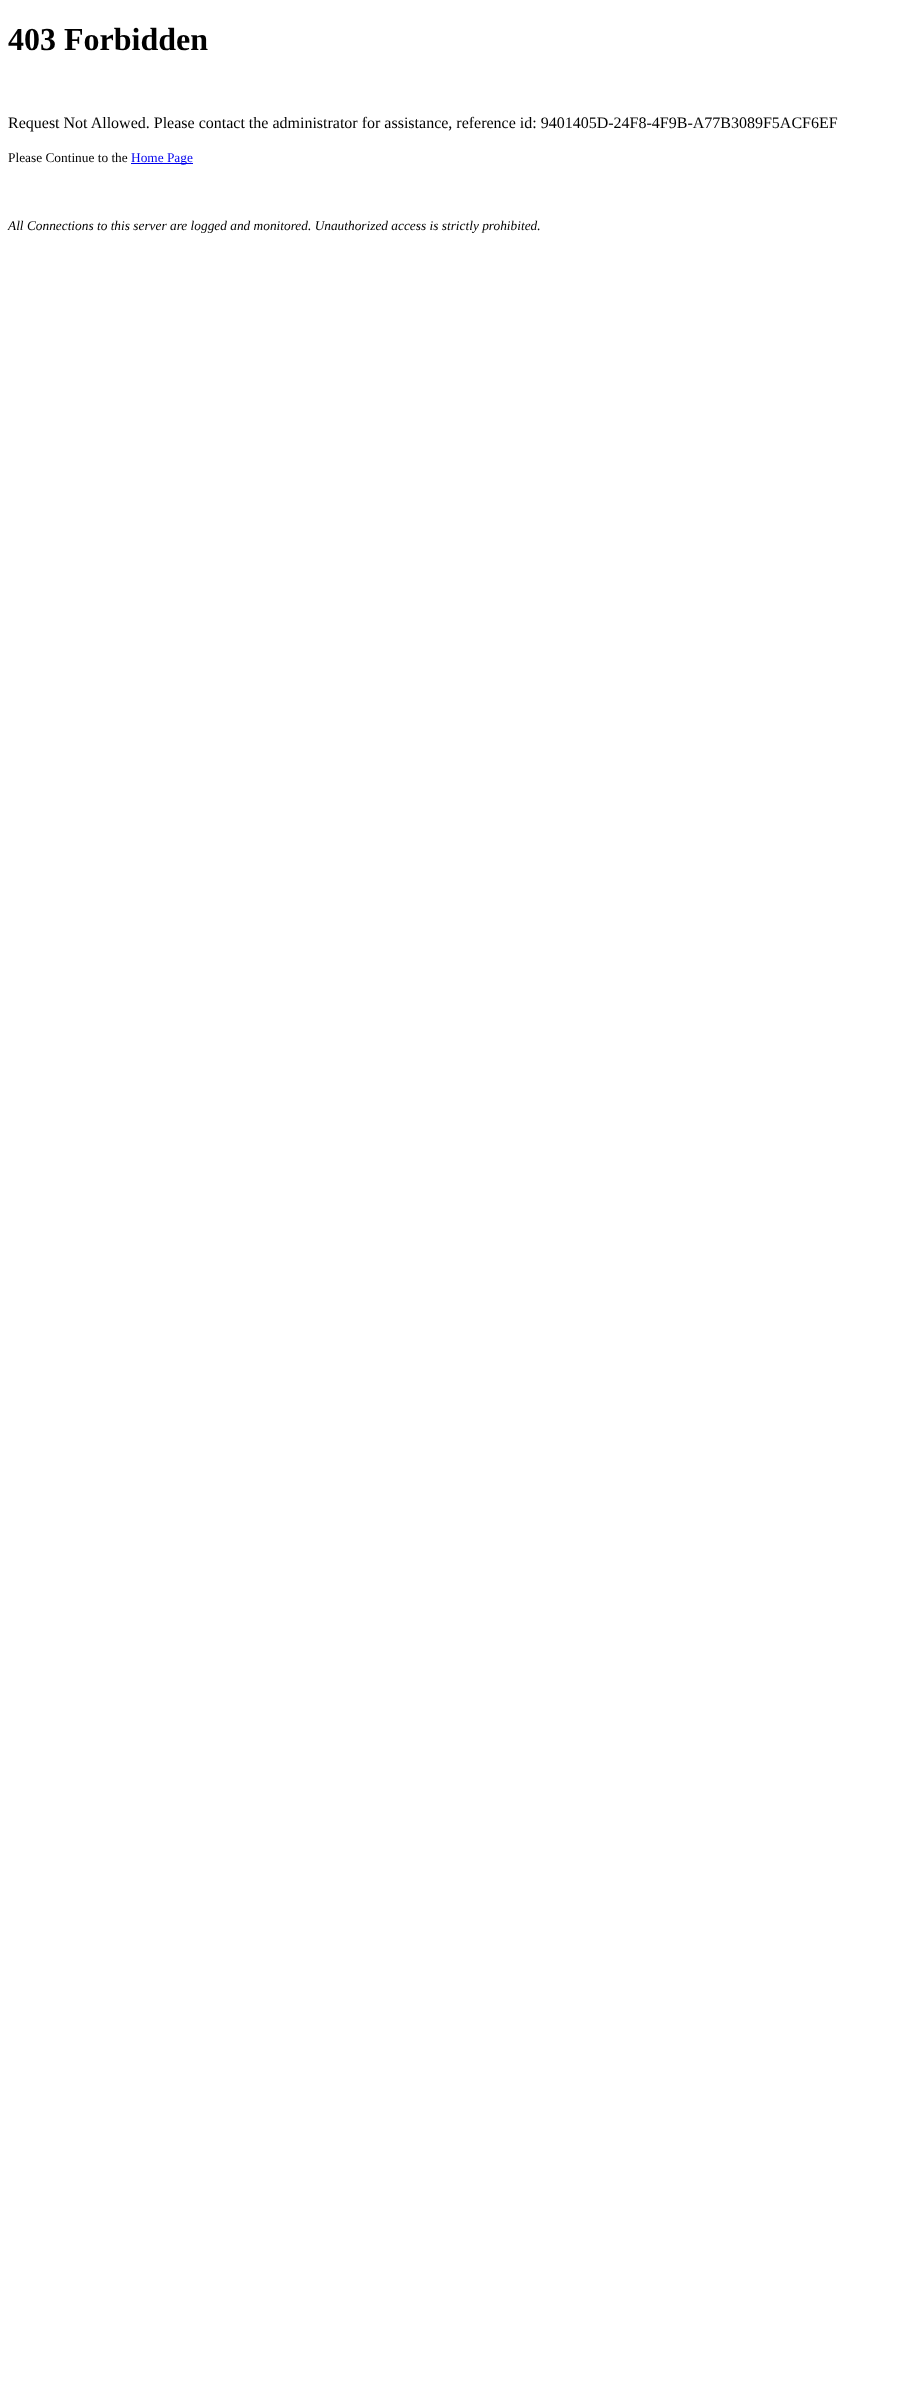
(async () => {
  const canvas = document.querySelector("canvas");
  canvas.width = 909;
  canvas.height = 2387;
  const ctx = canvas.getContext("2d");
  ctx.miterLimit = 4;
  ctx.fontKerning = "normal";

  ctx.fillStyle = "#ffffff";
  ctx.fillRect(0, 0, 909, 2387);
  ctx.fillStyle = "#0000ee";
  ctx.fillRect(131, 163, 62, 1);
  ctx.font = "bold 32px Liberation Serif";
  ctx.fillStyle = "#000000";
  ctx.fillText("403 Forbidden", 8, 50);
  ctx.font = "16px Liberation Serif";
  ctx.fillText("Request Not Allowed. Please contact the administrator for assistance, reference id: 9401405D-24F8-4F9B-A77B3089F5ACF6EF", 8, 128);
  ctx.font = "13.35px Liberation Serif";
  ctx.fillText("Please Continue to the", 8, 162);
  ctx.fillStyle = "#0000ee";
  ctx.fillText("Home Page", 131, 162);
  ctx.font = "italic 13.35px Liberation Serif";
  ctx.fillStyle = "#000000";
  ctx.fillText("All Connections to this server are logged and monitored. Unauthorized access is strictly prohibited.", 8, 230);
})();
